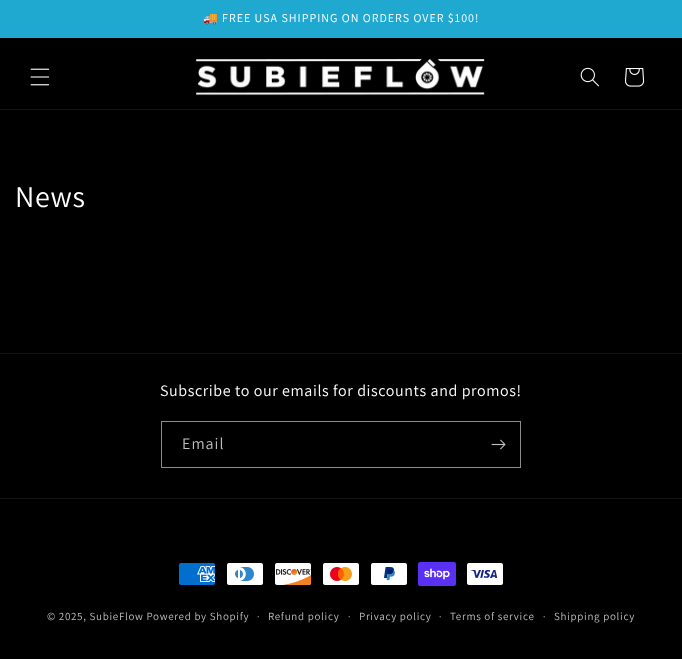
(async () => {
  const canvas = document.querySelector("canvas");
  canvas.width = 682;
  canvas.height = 659;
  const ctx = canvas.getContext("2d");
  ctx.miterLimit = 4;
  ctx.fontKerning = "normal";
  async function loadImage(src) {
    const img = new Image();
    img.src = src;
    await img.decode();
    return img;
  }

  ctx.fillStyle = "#000000";
  ctx.fillRect(0, 0, 682, 659);
  ctx.fillStyle = "#1fa9d1";
  ctx.fillRect(0, 0, 682, 38);
  ctx.fillStyle = "#141414";
  ctx.fillRect(0, 109, 682, 1);
  ctx.drawImage(await loadImage("img/1.png"), 30, 68, 20, 18);
  ctx.drawImage(await loadImage("img/2.png"), 196, 58, 289, 38);
  ctx.drawImage(await loadImage("img/3.png"), 580, 67, 19, 20);
  ctx.drawImage(await loadImage("img/4.png"), 625, 68, 20, 19);
  ctx.fillRect(0, 353, 682, 1);
  ctx.strokeStyle = "#8c8c8c";
  ctx.strokeRect(161.5, 421.5, 359, 46);
  ctx.drawImage(await loadImage("img/5.png"), 491, 439, 15, 11);
  ctx.fillRect(0, 498, 682, 1);
  ctx.drawImage(await loadImage("img/6.png"), 179, 563, 36, 22);
  ctx.drawImage(await loadImage("img/7.png"), 227, 563, 36, 22);
  ctx.drawImage(await loadImage("img/8.png"), 275, 563, 37, 22);
  ctx.drawImage(await loadImage("img/9.png"), 323, 563, 36, 22);
  ctx.drawImage(await loadImage("img/10.png"), 371, 563, 36, 22);
  ctx.drawImage(await loadImage("img/11.png"), 418, 562, 38, 24);
  ctx.drawImage(await loadImage("img/12.png"), 467, 563, 36, 22);
  ctx.letterSpacing = "1px";
  ctx.font = "12px Noto Color Emoji";
  ctx.fillStyle = "#ffffff";
  ctx.fillText("🚚", 203, 22);
  ctx.font = "12px Assistant";
  ctx.fillText("FREE USA SHIPPING ON ORDERS OVER $100!", 222, 22);
  ctx.letterSpacing = "0.6px";
  ctx.font = "30px Assistant";
  ctx.fillText("News", 15, 207);
  ctx.font = "16px Assistant";
  ctx.fillText("Subscribe to our emails for discounts and promos!", 160, 396);
  ctx.letterSpacing = "1px";
  ctx.fillStyle = "#bfbfbf";
  ctx.fillText("Email", 182, 449);
  ctx.letterSpacing = "0.7px";
  ctx.font = "11px Assistant";
  ctx.fillText("© 2025, SubieFlow Powered by Shopify", 47, 620);
  ctx.font = "10px Assistant";
  ctx.fillText("·", 257, 620);
  ctx.font = "11px Assistant";
  ctx.fillText("Refund policy", 268, 620);
  ctx.font = "10px Assistant";
  ctx.fillText("·", 348, 620);
  ctx.font = "11px Assistant";
  ctx.fillText("Privacy policy", 359, 620);
  ctx.font = "10px Assistant";
  ctx.fillText("·", 439, 620);
  ctx.font = "11px Assistant";
  ctx.fillText("Terms of service", 450, 620);
  ctx.font = "10px Assistant";
  ctx.fillText("·", 543, 620);
  ctx.font = "11px Assistant";
  ctx.fillText("Shipping policy", 554, 620);
})();
